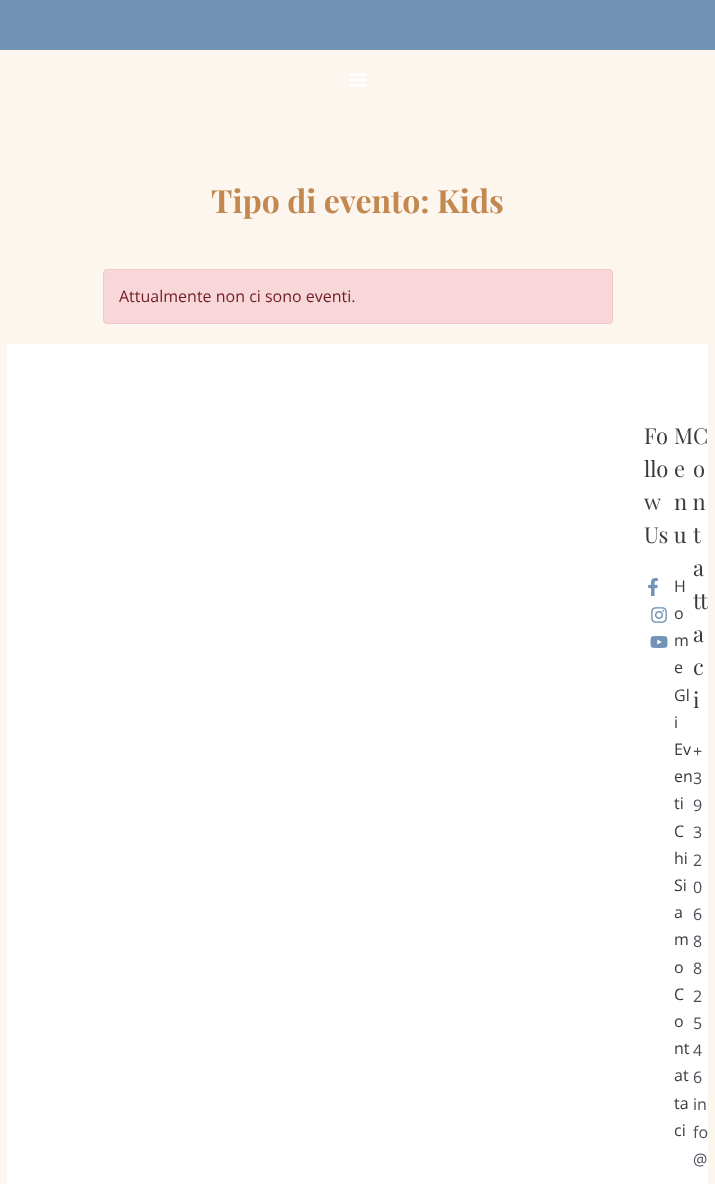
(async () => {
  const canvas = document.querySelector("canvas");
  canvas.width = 715;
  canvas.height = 1184;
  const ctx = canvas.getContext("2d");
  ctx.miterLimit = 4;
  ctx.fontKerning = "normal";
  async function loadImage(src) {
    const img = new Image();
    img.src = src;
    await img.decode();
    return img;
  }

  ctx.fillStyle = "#fcf6ef";
  ctx.fillRect(0, 0, 715, 1184);
  ctx.fillStyle = "#7293b6";
  ctx.fillRect(0, 0, 715, 50);
  ctx.drawImage(await loadImage("img/1.png"), 349, 73, 18, 14);
  ctx.fillStyle = "#f8d7da";
  ctx.beginPath();
  ctx.roundRect(103.5, 269.5, 509, 54, 3.5);
  ctx.fill();
  ctx.strokeStyle = "#f5c6cb";
  ctx.stroke();
  ctx.fillStyle = "#ffffff";
  ctx.fillRect(7, 344, 701, 840);
  ctx.drawImage(await loadImage("img/2.png"), 648, 578, 10, 18);
  ctx.drawImage(await loadImage("img/3.png"), 651, 607, 16, 16);
  ctx.drawImage(await loadImage("img/4.png"), 650, 636, 18, 12);
  ctx.font = "bold 32px Playfair Display";
  ctx.fillStyle = "#c2884f";
  ctx.fillText("Tipo di evento: Kids", 211, 213);
  ctx.font = "16px Open Sans";
  ctx.fillStyle = "#721c24";
  ctx.fillText("Attualmente non ci sono eventi.", 119, 302);
  ctx.font = "22px Playfair Display";
  ctx.fillStyle = "#3a3a3a";
  for (const [text, x, y] of [
    ["Fo", 644, 444],
    ["llo e", 644, 477],
    ["w", 644, 510],
    ["Us u", 644, 543],
    ["M", 674, 444],
    ["n n", 674, 510],
  ]) {
    ctx.fillText(text, x, y);
  }
  ctx.font = "16px Open Sans";
  for (const [text, x, y] of [
    ["H", 674, 592],
    ["o", 674, 619],
    ["m", 674, 646],
    ["e", 674, 673],
    ["Gl", 674, 701],
    ["i", 674, 728],
    ["Ev", 674, 755],
    ["en", 674, 782],
    ["ti", 674, 809],
    ["C", 674, 837],
    ["hi", 674, 864],
    ["Si", 674, 891],
    ["a", 674, 918],
    ["m", 674, 945],
    ["o", 674, 973],
    ["C", 674, 1000],
    ["o", 674, 1027],
    ["nt", 674, 1054],
    ["at", 674, 1081],
    ["ta", 674, 1109],
    ["ci", 674, 1136],
  ]) {
    ctx.fillText(text, x, y);
  }
  ctx.font = "22px Playfair Display";
  for (const [text, x, y] of [
    ["C", 693, 444],
    ["o", 693, 477],
    ["t", 693, 543],
    ["a", 693, 576],
    ["tt", 693, 609],
    ["a", 693, 642],
    ["c", 693, 675],
    ["i", 693, 708],
  ]) {
    ctx.fillText(text, x, y);
  }
  ctx.font = "16px Open Sans";
  ctx.fillStyle = "#4b4f58";
  for (const [text, x, y] of [
    ["+", 693, 757],
    ["3", 693, 784],
    ["9", 693, 811],
    ["3", 693, 838],
    ["2", 693, 866],
    ["0", 693, 893],
    ["6", 693, 920],
    ["8", 693, 947],
    ["8", 693, 974],
    ["2", 693, 1002],
    ["5", 693, 1029],
    ["4", 693, 1056],
    ["6", 693, 1083],
    ["in", 693, 1110],
    ["fo", 693, 1138],
    ["@", 693, 1165],
  ]) {
    ctx.fillText(text, x, y);
  }
})();
